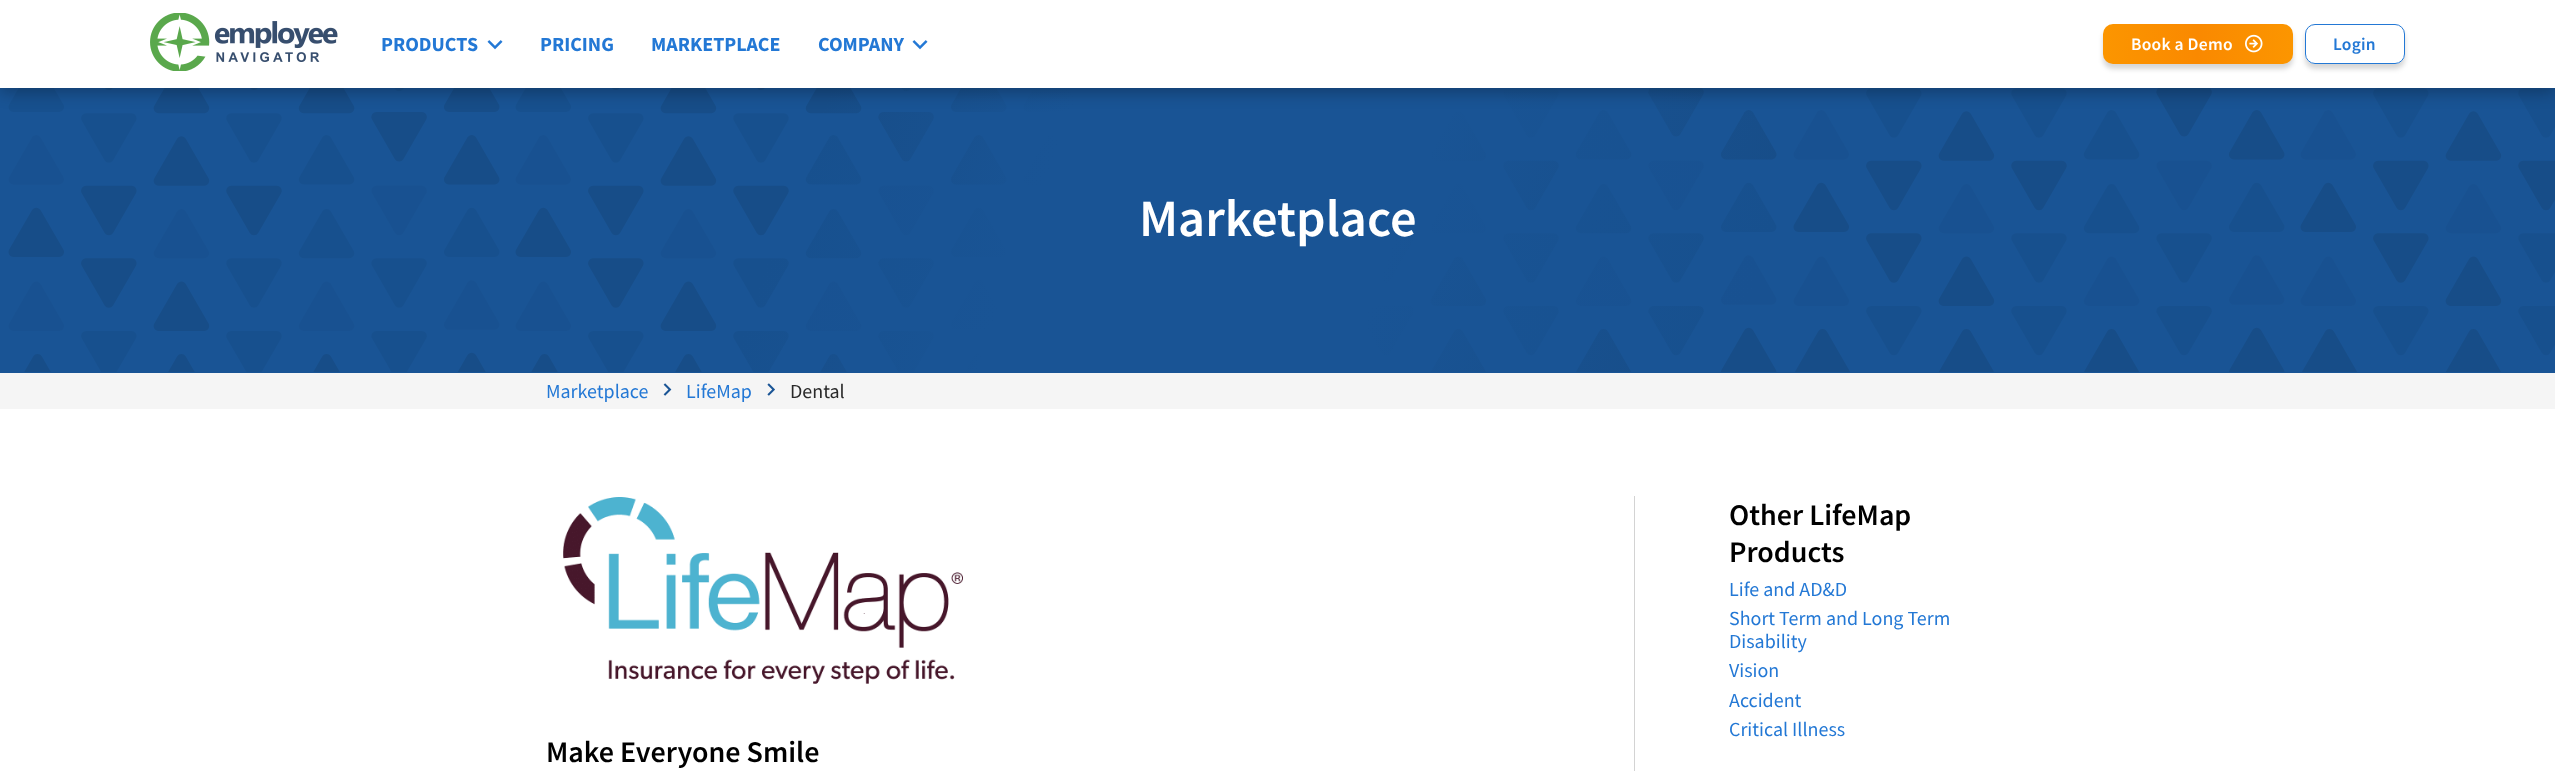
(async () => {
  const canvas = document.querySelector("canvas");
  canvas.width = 2555;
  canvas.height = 771;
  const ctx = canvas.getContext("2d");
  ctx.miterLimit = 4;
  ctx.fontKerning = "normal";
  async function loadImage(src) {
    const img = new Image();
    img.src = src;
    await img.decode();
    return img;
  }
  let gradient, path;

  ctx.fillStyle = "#ffffff";
  ctx.fillRect(0, 0, 2555, 771);
  ctx.fillStyle = "#195495";
  ctx.fillRect(0, 88, 2555, 285);
  ctx.drawImage(await loadImage("img/4.png"), 8, 88, 1067, 284);
  ctx.drawImage(await loadImage("img/5.png"), 1365, 88, 1190, 284);
  ctx.save();
  ctx.beginPath();
  ctx.rect(0, 25, 2555, 348);
  ctx.clip();
  gradient = ctx.createLinearGradient(837, 70, 1718, 390);
  gradient.addColorStop(0, "rgba(25, 84, 149, 0)");
  gradient.addColorStop(0.25, "#195495");
  gradient.addColorStop(0.62, "#195495");
  gradient.addColorStop(1, "rgba(25, 84, 149, 0)");
  ctx.fillStyle = gradient;
  path = new Path2D("M969-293L1850 28L1586 753L705 432Z");
  ctx.fill(path);
  ctx.restore();
  ctx.fillStyle = "rgba(0, 0, 0, 0.25)";
  ctx.filter = "blur(7.5px)";
  ctx.beginPath();
  ctx.rect(0, 5, 2555, 88);
  ctx.fill();
  ctx.filter = "none";
  ctx.fillStyle = "#ffffff";
  ctx.fillRect(0, 0, 2555, 88);
  ctx.drawImage(await loadImage("img/1.png"), 150, 13, 188, 58);
  ctx.drawImage(await loadImage("img/2.png"), 487, 40, 16, 10);
  ctx.drawImage(await loadImage("img/2.png"), 912, 40, 16, 10);
  ctx.fillStyle = "rgba(0, 0, 0, 0.16)";
  ctx.filter = "blur(2.5px)";
  ctx.beginPath();
  ctx.roundRect(2103, 29, 190, 40, 10);
  ctx.fill();
  ctx.filter = "none";
  gradient = ctx.createLinearGradient(1635, 44, 2198, 44);
  gradient.addColorStop(0, "#fa8900");
  gradient.addColorStop(0.5, "#ffae00");
  gradient.addColorStop(1, "#fa8900");
  ctx.fillStyle = gradient;
  ctx.beginPath();
  ctx.roundRect(2103, 24, 95, 40, [10, 0, 0, 10]);
  ctx.fill();
  gradient = ctx.createLinearGradient(2198, 44, 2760, 44);
  gradient.addColorStop(0, "#fa8900");
  gradient.addColorStop(0.5, "#ffae00");
  gradient.addColorStop(1, "#fa8900");
  ctx.fillStyle = gradient;
  ctx.beginPath();
  ctx.roundRect(2198, 24, 95, 40, [0, 10, 10, 0]);
  ctx.fill();
  ctx.drawImage(await loadImage("img/3.png"), 2245, 34, 18, 19);
  ctx.save();
  path = new Path2D("M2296 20H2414V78H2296ZM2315 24H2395C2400.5 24 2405 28.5 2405 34V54C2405 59.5 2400.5 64 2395 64H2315C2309.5 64 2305 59.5 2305 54V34C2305 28.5 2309.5 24 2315 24Z");
  ctx.clip(path, "evenodd");
  ctx.fillStyle = "rgba(0, 0, 0, 0.16)";
  ctx.filter = "blur(2.5px)";
  ctx.beginPath();
  ctx.roundRect(2305, 29, 100, 40, 10);
  ctx.fill();
  ctx.filter = "none";
  ctx.restore();
  ctx.beginPath();
  ctx.roundRect(2305.5, 24.5, 99, 39, 9.5);
  ctx.strokeStyle = "#2378d5";
  ctx.stroke();
  ctx.fillStyle = "#f5f5f5";
  ctx.fillRect(0, 373, 2555, 36);
  ctx.drawImage(await loadImage("img/6.png"), 663, 383, 9, 13);
  ctx.drawImage(await loadImage("img/7.png"), 767, 383, 8, 13);
  ctx.fillStyle = "#d3d3d3";
  ctx.fillRect(1634, 496, 1, 275);
  ctx.drawImage(await loadImage("img/8.png"), 563, 497, 400, 187);
  ctx.font = "bold 20px Source Sans Pro";
  ctx.fillStyle = "#2378d5";
  for (const [text, x, y] of [
    ["PRODUCTS", 381, 51],
    ["PRICING", 540, 51],
    ["MARKETPLACE", 651, 51],
    ["COMPANY", 818, 51],
  ]) {
    ctx.fillText(text, x, y);
  }
  ctx.letterSpacing = "0.25px";
  ctx.font = "600 17.5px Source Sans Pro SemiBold";
  ctx.fillStyle = "#ffffff";
  ctx.fillText("Book a Demo", 2131, 50);
  ctx.fillStyle = "#2378d5";
  ctx.fillText("Login", 2333, 50);
  ctx.letterSpacing = "0px";
  ctx.font = "600 52.5px Source Sans Pro SemiBold";
  ctx.fillStyle = "#ffffff";
  ctx.fillText("Marketplace", 1139, 236);
  ctx.font = "20px Source Sans Pro";
  ctx.fillStyle = "#2378d5";
  ctx.fillText("Marketplace", 546, 398);
  ctx.fillText("LifeMap", 686, 398);
  ctx.fillStyle = "#292929";
  ctx.fillText("Dental", 790, 398);
  ctx.font = "600 30px Source Sans Pro SemiBold";
  ctx.fillStyle = "#000000";
  ctx.fillText("Other LifeMap", 1729, 525);
  ctx.fillText("Products", 1729, 562);
  ctx.font = "20px Source Sans Pro";
  ctx.fillStyle = "#2378d5";
  for (const [text, x, y] of [
    ["Life and AD&D", 1729, 596],
    ["Short Term and Long Term", 1729, 625],
    ["Disability", 1729, 648],
    ["Vision", 1729, 677],
    ["Accident", 1729, 707],
    ["Critical Illness", 1729, 736],
  ]) {
    ctx.fillText(text, x, y);
  }
  ctx.font = "600 30px Source Sans Pro SemiBold";
  ctx.fillStyle = "#000000";
  ctx.fillText("Make Everyone Smile", 546, 762);
})();
